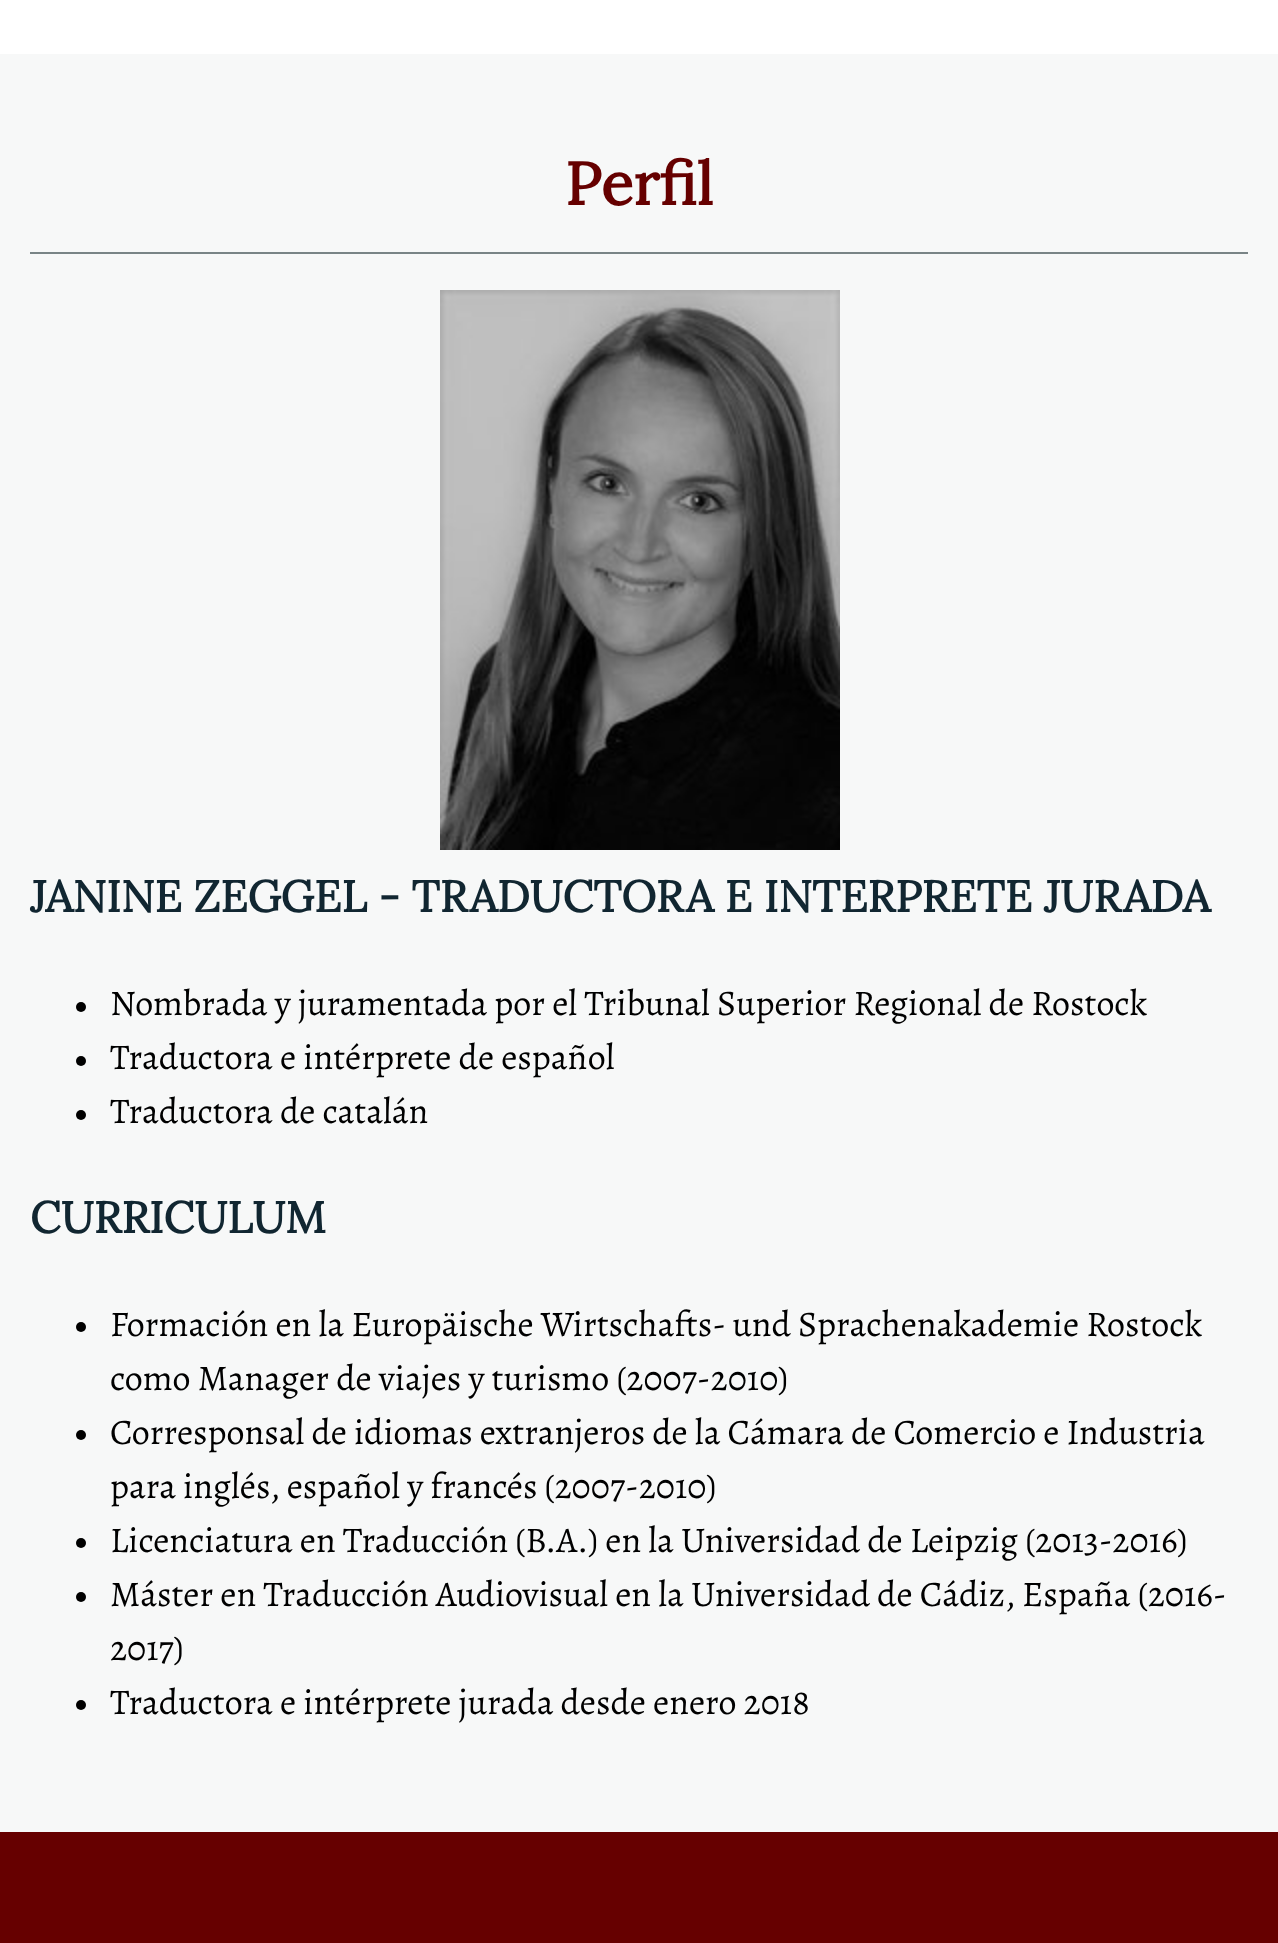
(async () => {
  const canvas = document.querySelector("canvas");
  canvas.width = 1278;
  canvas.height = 1943;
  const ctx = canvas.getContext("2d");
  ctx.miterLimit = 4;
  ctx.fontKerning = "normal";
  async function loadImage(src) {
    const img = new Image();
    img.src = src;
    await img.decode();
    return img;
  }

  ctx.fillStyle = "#ffffff";
  ctx.fillRect(0, 0, 1278, 1943);
  ctx.fillStyle = "#f7f8f8";
  ctx.fillRect(0, 54, 1278, 1778);
  ctx.fillStyle = "#798486";
  ctx.fillRect(30, 252, 1218, 2);
  ctx.drawImage(await loadImage("img/1.png"), 440, 290, 400, 560);
  ctx.fillStyle = "#000000";
  ctx.beginPath();
  ctx.arc(81, 1007, 5, 0, Math.PI * 2);
  ctx.fill();
  ctx.beginPath();
  ctx.arc(81, 1061, 5, 0, Math.PI * 2);
  ctx.fill();
  ctx.beginPath();
  ctx.arc(81, 1115, 5, 0, Math.PI * 2);
  ctx.fill();
  ctx.beginPath();
  ctx.arc(81, 1327, 5, 0, Math.PI * 2);
  ctx.fill();
  ctx.beginPath();
  ctx.arc(81, 1435, 5, 0, Math.PI * 2);
  ctx.fill();
  ctx.beginPath();
  ctx.arc(81, 1543, 5, 0, Math.PI * 2);
  ctx.fill();
  ctx.beginPath();
  ctx.arc(81, 1597, 5, 0, Math.PI * 2);
  ctx.fill();
  ctx.beginPath();
  ctx.arc(81, 1705, 5, 0, Math.PI * 2);
  ctx.fill();
  ctx.fillStyle = "#660000";
  ctx.fillRect(0, 1832, 1278, 111);
  ctx.font = "bold 60px Lora";
  ctx.fillText("Perfil", 565, 205);
  ctx.font = "bold 44px Lora";
  ctx.fillStyle = "#112631";
  ctx.fillText("JANINE ZEGGEL - TRADUCTORA E INTERPRETE JURADA", 30, 912);
  ctx.font = "36px Alegreya";
  ctx.fillStyle = "#000000";
  for (const [text, x, y] of [
    ["Nombrada y juramentada por el Tribunal Superior Regional de Rostock", 110, 1015],
    ["Traductora e intérprete de español", 110, 1069],
    ["Traductora de catalán", 110, 1123],
  ]) {
    ctx.fillText(text, x, y);
  }
  ctx.font = "bold 44px Lora";
  ctx.fillStyle = "#112631";
  ctx.fillText("CURRICULUM", 30, 1233);
  ctx.font = "36px Alegreya";
  ctx.fillStyle = "#000000";
  for (const [text, x, y] of [
    ["Formación en la Europäische Wirtschafts- und Sprachenakademie Rostock", 110, 1336],
    ["como Manager de viajes y turismo (2007-2010)", 110, 1390],
    ["Corresponsal de idiomas extranjeros de la Cámara de Comercio e Industria", 110, 1444],
    ["para inglés, español y francés (2007-2010)", 110, 1498],
    ["Licenciatura en Traducción (B.A.) en la Universidad de Leipzig (2013-2016)", 110, 1552],
    ["Máster en Traducción Audiovisual en la Universidad de Cádiz, España (2016-", 110, 1606],
    ["2017)", 110, 1660],
    ["Traductora e intérprete jurada desde enero 2018", 110, 1714],
  ]) {
    ctx.fillText(text, x, y);
  }
})();
